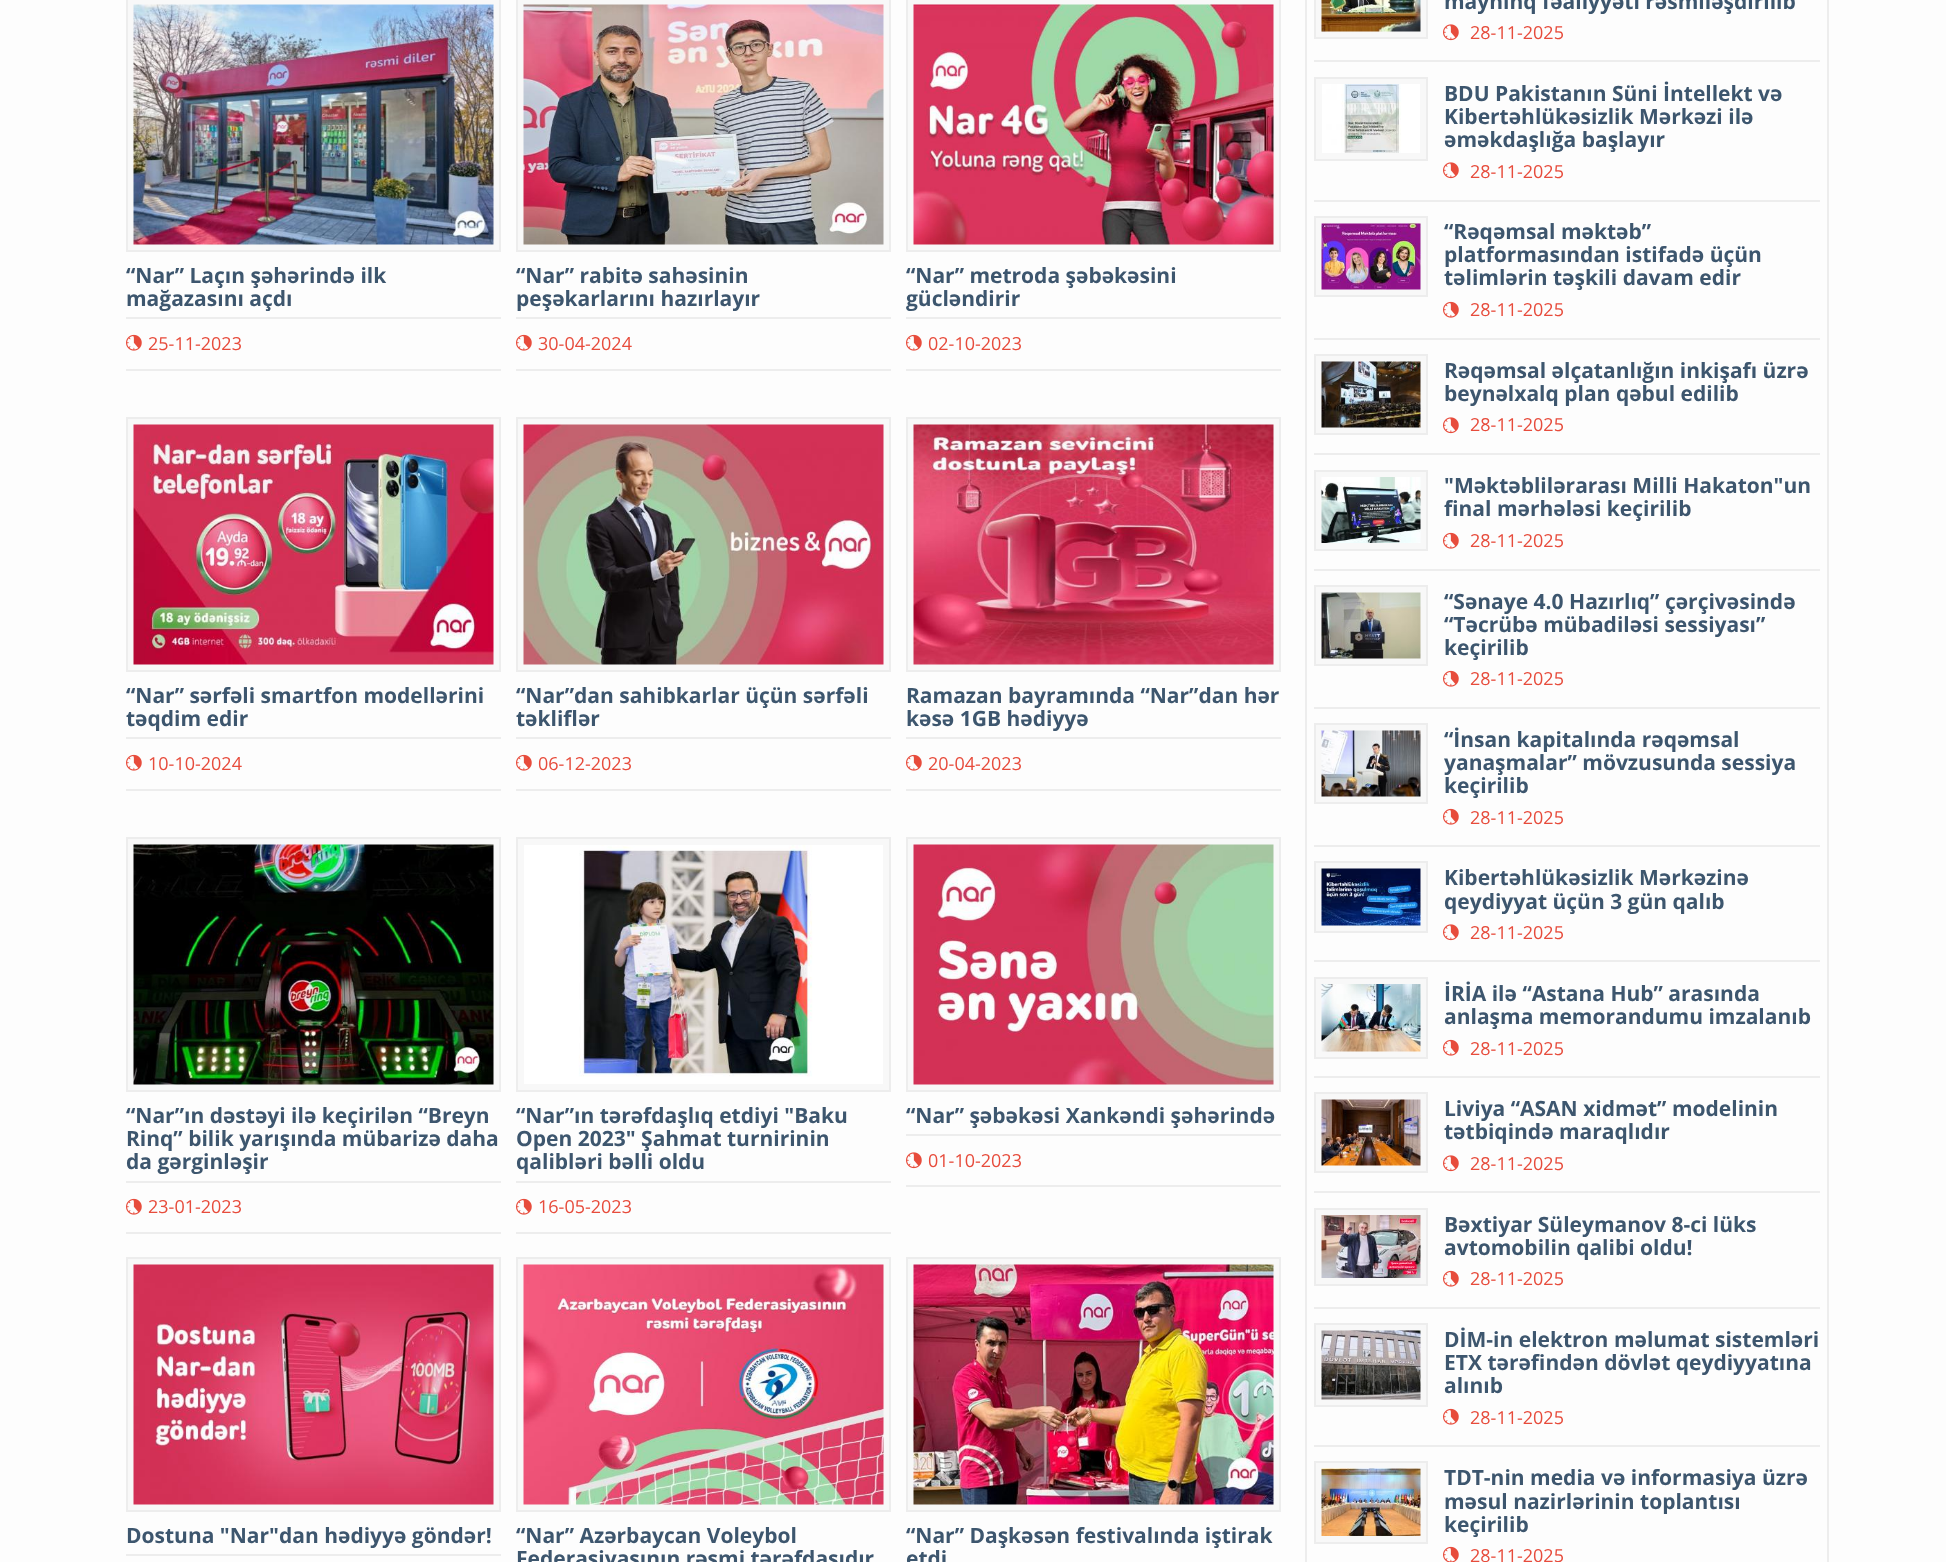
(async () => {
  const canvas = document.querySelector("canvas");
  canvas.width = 1946;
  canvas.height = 1562;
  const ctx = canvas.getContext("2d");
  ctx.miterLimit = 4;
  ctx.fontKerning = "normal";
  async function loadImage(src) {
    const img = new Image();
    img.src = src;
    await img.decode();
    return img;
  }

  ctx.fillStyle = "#fdfdfd";
  ctx.fillRect(0, 0, 1946, 1562);
  ctx.fillStyle = "#f8f8f8";
  ctx.beginPath();
  ctx.rect(127, -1, 373, 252);
  ctx.fill();
  ctx.strokeStyle = "#ededed";
  ctx.lineWidth = 2;
  ctx.stroke();
  ctx.drawImage(await loadImage("img/1.png"), 133, 4, 361, 241);
  ctx.fillStyle = "#ededed";
  ctx.fillRect(126, 317, 375, 2);
  ctx.fillRect(126, 369, 375, 2);
  ctx.drawImage(await loadImage("img/2.png"), 126, 334, 16, 17);
  ctx.fillStyle = "#f8f8f8";
  ctx.beginPath();
  ctx.rect(517, -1, 373, 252);
  ctx.fill();
  ctx.stroke();
  ctx.drawImage(await loadImage("img/3.png"), 523, 4, 361, 241);
  ctx.fillStyle = "#ededed";
  ctx.fillRect(516, 317, 375, 2);
  ctx.fillRect(516, 369, 375, 2);
  ctx.drawImage(await loadImage("img/2.png"), 516, 334, 16, 17);
  ctx.fillStyle = "#f8f8f8";
  ctx.beginPath();
  ctx.rect(907, -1, 373, 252);
  ctx.fill();
  ctx.stroke();
  ctx.drawImage(await loadImage("img/4.png"), 913, 4, 361, 241);
  ctx.fillStyle = "#ededed";
  ctx.fillRect(906, 317, 375, 2);
  ctx.fillRect(906, 369, 375, 2);
  ctx.drawImage(await loadImage("img/2.png"), 906, 334, 16, 17);
  ctx.fillStyle = "#f8f8f8";
  ctx.beginPath();
  ctx.rect(127, 418, 373, 253);
  ctx.fill();
  ctx.stroke();
  ctx.drawImage(await loadImage("img/5.png"), 133, 424, 361, 241);
  ctx.fillStyle = "#ededed";
  ctx.fillRect(126, 737, 375, 2);
  ctx.fillRect(126, 789, 375, 2);
  ctx.drawImage(await loadImage("img/2.png"), 126, 754, 16, 17);
  ctx.fillStyle = "#f8f8f8";
  ctx.beginPath();
  ctx.rect(517, 418, 373, 253);
  ctx.fill();
  ctx.stroke();
  ctx.drawImage(await loadImage("img/6.png"), 523, 424, 361, 241);
  ctx.fillStyle = "#ededed";
  ctx.fillRect(516, 737, 375, 2);
  ctx.fillRect(516, 789, 375, 2);
  ctx.drawImage(await loadImage("img/2.png"), 516, 754, 16, 17);
  ctx.fillStyle = "#f8f8f8";
  ctx.beginPath();
  ctx.rect(907, 418, 373, 253);
  ctx.fill();
  ctx.stroke();
  ctx.drawImage(await loadImage("img/7.png"), 913, 424, 361, 241);
  ctx.fillStyle = "#ededed";
  ctx.fillRect(906, 737, 375, 2);
  ctx.fillRect(906, 789, 375, 2);
  ctx.drawImage(await loadImage("img/2.png"), 906, 754, 16, 17);
  ctx.fillStyle = "#f8f8f8";
  ctx.beginPath();
  ctx.rect(127, 838, 373, 253);
  ctx.fill();
  ctx.stroke();
  ctx.drawImage(await loadImage("img/8.png"), 133, 844, 361, 241);
  ctx.fillStyle = "#ededed";
  ctx.fillRect(126, 1181, 375, 2);
  ctx.fillRect(126, 1232, 375, 2);
  ctx.drawImage(await loadImage("img/2.png"), 126, 1198, 16, 17);
  ctx.fillStyle = "#f8f8f8";
  ctx.beginPath();
  ctx.rect(517, 838, 373, 253);
  ctx.fill();
  ctx.stroke();
  ctx.drawImage(await loadImage("img/9.png"), 524, 845, 359, 239);
  ctx.fillStyle = "#ededed";
  ctx.fillRect(516, 1181, 375, 2);
  ctx.fillRect(516, 1232, 375, 2);
  ctx.drawImage(await loadImage("img/2.png"), 516, 1198, 16, 17);
  ctx.fillStyle = "#f8f8f8";
  ctx.beginPath();
  ctx.rect(907, 838, 373, 253);
  ctx.fill();
  ctx.stroke();
  ctx.drawImage(await loadImage("img/10.png"), 913, 844, 361, 241);
  ctx.fillStyle = "#ededed";
  ctx.fillRect(906, 1134, 375, 2);
  ctx.fillRect(906, 1185, 375, 2);
  ctx.drawImage(await loadImage("img/11.png"), 906, 1152, 16, 17);
  ctx.fillStyle = "#f8f8f8";
  ctx.beginPath();
  ctx.rect(127, 1258, 373, 253);
  ctx.fill();
  ctx.stroke();
  ctx.drawImage(await loadImage("img/12.png"), 133, 1264, 361, 241);
  ctx.fillStyle = "#ededed";
  ctx.fillRect(126, 1554, 375, 2);
  ctx.fillStyle = "#f8f8f8";
  ctx.beginPath();
  ctx.rect(517, 1258, 373, 253);
  ctx.fill();
  ctx.stroke();
  ctx.drawImage(await loadImage("img/13.png"), 523, 1264, 361, 241);
  ctx.beginPath();
  ctx.rect(907, 1258, 373, 253);
  ctx.fill();
  ctx.stroke();
  ctx.drawImage(await loadImage("img/14.png"), 913, 1264, 361, 241);
  ctx.strokeRect(1306, -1, 522, 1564);
  ctx.fillStyle = "#ededed";
  ctx.fillRect(1314, 60, 506, 2);
  ctx.fillStyle = "#f8f8f8";
  ctx.beginPath();
  ctx.rect(1315, -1, 112, 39);
  ctx.fill();
  ctx.stroke();
  ctx.drawImage(await loadImage("img/15.png"), 1321, 0, 100, 32);
  ctx.drawImage(await loadImage("img/11.png"), 1443, 24, 16, 17);
  ctx.fillStyle = "#ededed";
  ctx.fillRect(1314, 200, 506, 2);
  ctx.fillStyle = "#f8f8f8";
  ctx.beginPath();
  ctx.rect(1315, 78, 112, 82);
  ctx.fill();
  ctx.stroke();
  ctx.drawImage(await loadImage("img/16.png"), 1322, 84, 98, 69);
  ctx.drawImage(await loadImage("img/11.png"), 1443, 162, 16, 17);
  ctx.fillStyle = "#ededed";
  ctx.fillRect(1314, 338, 506, 2);
  ctx.fillStyle = "#f8f8f8";
  ctx.beginPath();
  ctx.rect(1315, 217, 112, 79);
  ctx.fill();
  ctx.stroke();
  ctx.drawImage(await loadImage("img/17.png"), 1321, 223, 100, 67);
  ctx.drawImage(await loadImage("img/2.png"), 1443, 301, 16, 17);
  ctx.fillStyle = "#ededed";
  ctx.fillRect(1314, 453, 506, 2);
  ctx.fillStyle = "#f8f8f8";
  ctx.beginPath();
  ctx.rect(1315, 355, 112, 79);
  ctx.fill();
  ctx.stroke();
  ctx.drawImage(await loadImage("img/18.png"), 1321, 361, 100, 67);
  ctx.drawImage(await loadImage("img/11.png"), 1443, 417, 16, 17);
  ctx.fillStyle = "#ededed";
  ctx.fillRect(1314, 569, 506, 2);
  ctx.fillStyle = "#f8f8f8";
  ctx.beginPath();
  ctx.rect(1315, 471, 112, 79);
  ctx.fill();
  ctx.stroke();
  ctx.drawImage(await loadImage("img/19.png"), 1321, 477, 100, 66);
  ctx.drawImage(await loadImage("img/2.png"), 1443, 532, 16, 17);
  ctx.fillStyle = "#ededed";
  ctx.fillRect(1314, 707, 506, 2);
  ctx.fillStyle = "#f8f8f8";
  ctx.beginPath();
  ctx.rect(1315, 586, 112, 79);
  ctx.fill();
  ctx.stroke();
  ctx.drawImage(await loadImage("img/20.png"), 1321, 592, 100, 67);
  ctx.drawImage(await loadImage("img/2.png"), 1443, 670, 16, 17);
  ctx.fillStyle = "#ededed";
  ctx.fillRect(1314, 845, 506, 2);
  ctx.fillStyle = "#f8f8f8";
  ctx.beginPath();
  ctx.rect(1315, 724, 112, 79);
  ctx.fill();
  ctx.stroke();
  ctx.drawImage(await loadImage("img/21.png"), 1321, 730, 100, 67);
  ctx.drawImage(await loadImage("img/2.png"), 1443, 808, 16, 17);
  ctx.fillStyle = "#ededed";
  ctx.fillRect(1314, 960, 506, 2);
  ctx.fillStyle = "#f8f8f8";
  ctx.beginPath();
  ctx.rect(1315, 862, 112, 70);
  ctx.fill();
  ctx.stroke();
  ctx.drawImage(await loadImage("img/22.png"), 1321, 868, 100, 58);
  ctx.drawImage(await loadImage("img/11.png"), 1443, 924, 16, 17);
  ctx.fillStyle = "#ededed";
  ctx.fillRect(1314, 1076, 506, 2);
  ctx.fillStyle = "#f8f8f8";
  ctx.beginPath();
  ctx.rect(1315, 978, 112, 80);
  ctx.fill();
  ctx.stroke();
  ctx.drawImage(await loadImage("img/23.png"), 1321, 984, 100, 68);
  ctx.drawImage(await loadImage("img/2.png"), 1443, 1039, 16, 17);
  ctx.fillStyle = "#ededed";
  ctx.fillRect(1314, 1191, 506, 2);
  ctx.fillStyle = "#f8f8f8";
  ctx.beginPath();
  ctx.rect(1315, 1093, 112, 79);
  ctx.fill();
  ctx.stroke();
  ctx.drawImage(await loadImage("img/24.png"), 1321, 1099, 100, 67);
  ctx.drawImage(await loadImage("img/11.png"), 1443, 1155, 16, 17);
  ctx.fillStyle = "#ededed";
  ctx.fillRect(1314, 1307, 506, 2);
  ctx.fillStyle = "#f8f8f8";
  ctx.beginPath();
  ctx.rect(1315, 1209, 112, 76);
  ctx.fill();
  ctx.stroke();
  ctx.drawImage(await loadImage("img/25.png"), 1321, 1215, 100, 63);
  ctx.drawImage(await loadImage("img/2.png"), 1443, 1270, 16, 17);
  ctx.fillStyle = "#ededed";
  ctx.fillRect(1314, 1445, 506, 2);
  ctx.fillStyle = "#f8f8f8";
  ctx.beginPath();
  ctx.rect(1315, 1324, 112, 82);
  ctx.fill();
  ctx.stroke();
  ctx.drawImage(await loadImage("img/26.png"), 1321, 1330, 100, 70);
  ctx.drawImage(await loadImage("img/2.png"), 1443, 1408, 16, 17);
  ctx.beginPath();
  ctx.rect(1315, 1462, 112, 81);
  ctx.fill();
  ctx.stroke();
  ctx.drawImage(await loadImage("img/27.png"), 1321, 1468, 100, 68);
  ctx.drawImage(await loadImage("img/28.png"), 1443, 1546, 16, 16);
  ctx.font = "bold 21px Open Sans";
  ctx.fillStyle = "#3d566e";
  ctx.fillText("“Nar” Laçın şəhərində ilk", 126, 283);
  ctx.fillText("mağazasını açdı", 126, 306);
  ctx.font = "18px Open Sans";
  ctx.fillStyle = "#e74c3c";
  ctx.fillText("25-11-2023", 148, 350);
  ctx.font = "bold 21px Open Sans";
  ctx.fillStyle = "#3d566e";
  ctx.fillText("“Nar” rabitə sahəsinin", 516, 283);
  ctx.fillText("peşəkarlarını hazırlayır", 516, 306);
  ctx.font = "18px Open Sans";
  ctx.fillStyle = "#e74c3c";
  ctx.fillText("30-04-2024", 538, 350);
  ctx.font = "bold 21px Open Sans";
  ctx.fillStyle = "#3d566e";
  ctx.fillText("“Nar” metroda şəbəkəsini", 906, 283);
  ctx.fillText("gücləndirir", 906, 306);
  ctx.font = "18px Open Sans";
  ctx.fillStyle = "#e74c3c";
  ctx.fillText("02-10-2023", 928, 350);
  ctx.font = "bold 21px Open Sans";
  ctx.fillStyle = "#3d566e";
  ctx.fillText("“Nar” sərfəli smartfon modellərini", 126, 703);
  ctx.fillText("təqdim edir", 126, 726);
  ctx.font = "18px Open Sans";
  ctx.fillStyle = "#e74c3c";
  ctx.fillText("10-10-2024", 148, 770);
  ctx.font = "bold 21px Open Sans";
  ctx.fillStyle = "#3d566e";
  ctx.fillText("“Nar”dan sahibkarlar üçün sərfəli", 516, 703);
  ctx.fillText("təkliflər", 516, 726);
  ctx.font = "18px Open Sans";
  ctx.fillStyle = "#e74c3c";
  ctx.fillText("06-12-2023", 538, 770);
  ctx.font = "bold 21px Open Sans";
  ctx.fillStyle = "#3d566e";
  ctx.fillText("Ramazan bayramında “Nar”dan hər", 906, 703);
  ctx.fillText("kəsə 1GB hədiyyə", 906, 726);
  ctx.font = "18px Open Sans";
  ctx.fillStyle = "#e74c3c";
  ctx.fillText("20-04-2023", 928, 770);
  ctx.font = "bold 21px Open Sans";
  ctx.fillStyle = "#3d566e";
  for (const [text, x, y] of [
    ["“Nar”ın dəstəyi ilə keçirilən “Breyn", 126, 1123],
    ["Rinq” bilik yarışında mübarizə daha", 126, 1146],
    ["da gərginləşir", 126, 1169],
  ]) {
    ctx.fillText(text, x, y);
  }
  ctx.font = "18px Open Sans";
  ctx.fillStyle = "#e74c3c";
  ctx.fillText("23-01-2023", 148, 1213);
  ctx.font = "bold 21px Open Sans";
  ctx.fillStyle = "#3d566e";
  for (const [text, x, y] of [
    ["“Nar”ın tərəfdaşlıq etdiyi \"Baku", 516, 1123],
    ["Open 2023\" Şahmat turnirinin", 516, 1146],
    ["qalibləri bəlli oldu", 516, 1169],
  ]) {
    ctx.fillText(text, x, y);
  }
  ctx.font = "18px Open Sans";
  ctx.fillStyle = "#e74c3c";
  ctx.fillText("16-05-2023", 538, 1213);
  ctx.font = "bold 21px Open Sans";
  ctx.fillStyle = "#3d566e";
  ctx.fillText("“Nar” şəbəkəsi Xankəndi şəhərində", 906, 1123);
  ctx.font = "18px Open Sans";
  ctx.fillStyle = "#e74c3c";
  ctx.fillText("01-10-2023", 928, 1167);
  ctx.font = "bold 21px Open Sans";
  ctx.fillStyle = "#3d566e";
  for (const [text, x, y] of [
    ["Dostuna \"Nar\"dan hədiyyə göndər!", 126, 1543],
    ["“Nar” Azərbaycan Voleybol", 516, 1543],
    ["Federasiyasının rəsmi tərəfdaşıdır", 516, 1566],
    ["“Nar” Daşkəsən festivalında iştirak", 906, 1543],
    ["etdi", 906, 1566],
    ["mayninq fəaliyyəti rəsmiləşdirilib", 1444, 9],
  ]) {
    ctx.fillText(text, x, y);
  }
  ctx.font = "18px Open Sans";
  ctx.fillStyle = "#e74c3c";
  ctx.fillText("28-11-2025", 1470, 39);
  ctx.font = "bold 21px Open Sans";
  ctx.fillStyle = "#3d566e";
  for (const [text, x, y] of [
    ["BDU Pakistanın Süni İntellekt və", 1444, 101],
    ["Kibertəhlükəsizlik Mərkəzi ilə", 1444, 124],
    ["əməkdaşlığa başlayır", 1444, 147],
  ]) {
    ctx.fillText(text, x, y);
  }
  ctx.font = "18px Open Sans";
  ctx.fillStyle = "#e74c3c";
  ctx.fillText("28-11-2025", 1470, 178);
  ctx.font = "bold 21px Open Sans";
  ctx.fillStyle = "#3d566e";
  for (const [text, x, y] of [
    ["“Rəqəmsal məktəb”", 1444, 239],
    ["platformasından istifadə üçün", 1444, 262],
    ["təlimlərin təşkili davam edir", 1444, 285],
  ]) {
    ctx.fillText(text, x, y);
  }
  ctx.font = "18px Open Sans";
  ctx.fillStyle = "#e74c3c";
  ctx.fillText("28-11-2025", 1470, 316);
  ctx.font = "bold 21px Open Sans";
  ctx.fillStyle = "#3d566e";
  ctx.fillText("Rəqəmsal əlçatanlığın inkişafı üzrə", 1444, 378);
  ctx.fillText("beynəlxalq plan qəbul edilib", 1444, 401);
  ctx.font = "18px Open Sans";
  ctx.fillStyle = "#e74c3c";
  ctx.fillText("28-11-2025", 1470, 431);
  ctx.font = "bold 21px Open Sans";
  ctx.fillStyle = "#3d566e";
  ctx.fillText("\"Məktəblilərarası Milli Hakaton\"un", 1444, 493);
  ctx.fillText("final mərhələsi keçirilib", 1444, 516);
  ctx.font = "18px Open Sans";
  ctx.fillStyle = "#e74c3c";
  ctx.fillText("28-11-2025", 1470, 547);
  ctx.font = "bold 21px Open Sans";
  ctx.fillStyle = "#3d566e";
  for (const [text, x, y] of [
    ["“Sənaye 4.0 Hazırlıq” çərçivəsində", 1444, 609],
    ["“Təcrübə mübadiləsi sessiyası”", 1444, 632],
    ["keçirilib", 1444, 655],
  ]) {
    ctx.fillText(text, x, y);
  }
  ctx.font = "18px Open Sans";
  ctx.fillStyle = "#e74c3c";
  ctx.fillText("28-11-2025", 1470, 685);
  ctx.font = "bold 21px Open Sans";
  ctx.fillStyle = "#3d566e";
  for (const [text, x, y] of [
    ["“İnsan kapitalında rəqəmsal", 1444, 747],
    ["yanaşmalar” mövzusunda sessiya", 1444, 770],
    ["keçirilib", 1444, 793],
  ]) {
    ctx.fillText(text, x, y);
  }
  ctx.font = "18px Open Sans";
  ctx.fillStyle = "#e74c3c";
  ctx.fillText("28-11-2025", 1470, 824);
  ctx.font = "bold 21px Open Sans";
  ctx.fillStyle = "#3d566e";
  ctx.fillText("Kibertəhlükəsizlik Mərkəzinə", 1444, 885);
  ctx.fillText("qeydiyyat üçün 3 gün qalıb", 1444, 909);
  ctx.font = "18px Open Sans";
  ctx.fillStyle = "#e74c3c";
  ctx.fillText("28-11-2025", 1470, 939);
  ctx.font = "bold 21px Open Sans";
  ctx.fillStyle = "#3d566e";
  ctx.fillText("İRİA ilə “Astana Hub” arasında", 1444, 1001);
  ctx.fillText("anlaşma memorandumu imzalanıb", 1444, 1024);
  ctx.font = "18px Open Sans";
  ctx.fillStyle = "#e74c3c";
  ctx.fillText("28-11-2025", 1470, 1055);
  ctx.font = "bold 21px Open Sans";
  ctx.fillStyle = "#3d566e";
  ctx.fillText("Liviya “ASAN xidmət” modelinin", 1444, 1116);
  ctx.fillText("tətbiqində maraqlıdır", 1444, 1139);
  ctx.font = "18px Open Sans";
  ctx.fillStyle = "#e74c3c";
  ctx.fillText("28-11-2025", 1470, 1170);
  ctx.font = "bold 21px Open Sans";
  ctx.fillStyle = "#3d566e";
  ctx.fillText("Bəxtiyar Süleymanov 8-ci lüks", 1444, 1232);
  ctx.fillText("avtomobilin qalibi oldu!", 1444, 1255);
  ctx.font = "18px Open Sans";
  ctx.fillStyle = "#e74c3c";
  ctx.fillText("28-11-2025", 1470, 1285);
  ctx.font = "bold 21px Open Sans";
  ctx.fillStyle = "#3d566e";
  for (const [text, x, y] of [
    ["DİM-in elektron məlumat sistemləri", 1444, 1347],
    ["ETX tərəfindən dövlət qeydiyyatına", 1444, 1370],
    ["alınıb", 1444, 1393],
  ]) {
    ctx.fillText(text, x, y);
  }
  ctx.font = "18px Open Sans";
  ctx.fillStyle = "#e74c3c";
  ctx.fillText("28-11-2025", 1470, 1424);
  ctx.font = "bold 21px Open Sans";
  ctx.fillStyle = "#3d566e";
  for (const [text, x, y] of [
    ["TDT-nin media və informasiya üzrə", 1444, 1485],
    ["məsul nazirlərinin toplantısı", 1444, 1509],
    ["keçirilib", 1444, 1532],
  ]) {
    ctx.fillText(text, x, y);
  }
  ctx.font = "18px Open Sans";
  ctx.fillStyle = "#e74c3c";
  ctx.fillText("28-11-2025", 1470, 1562);
})();
